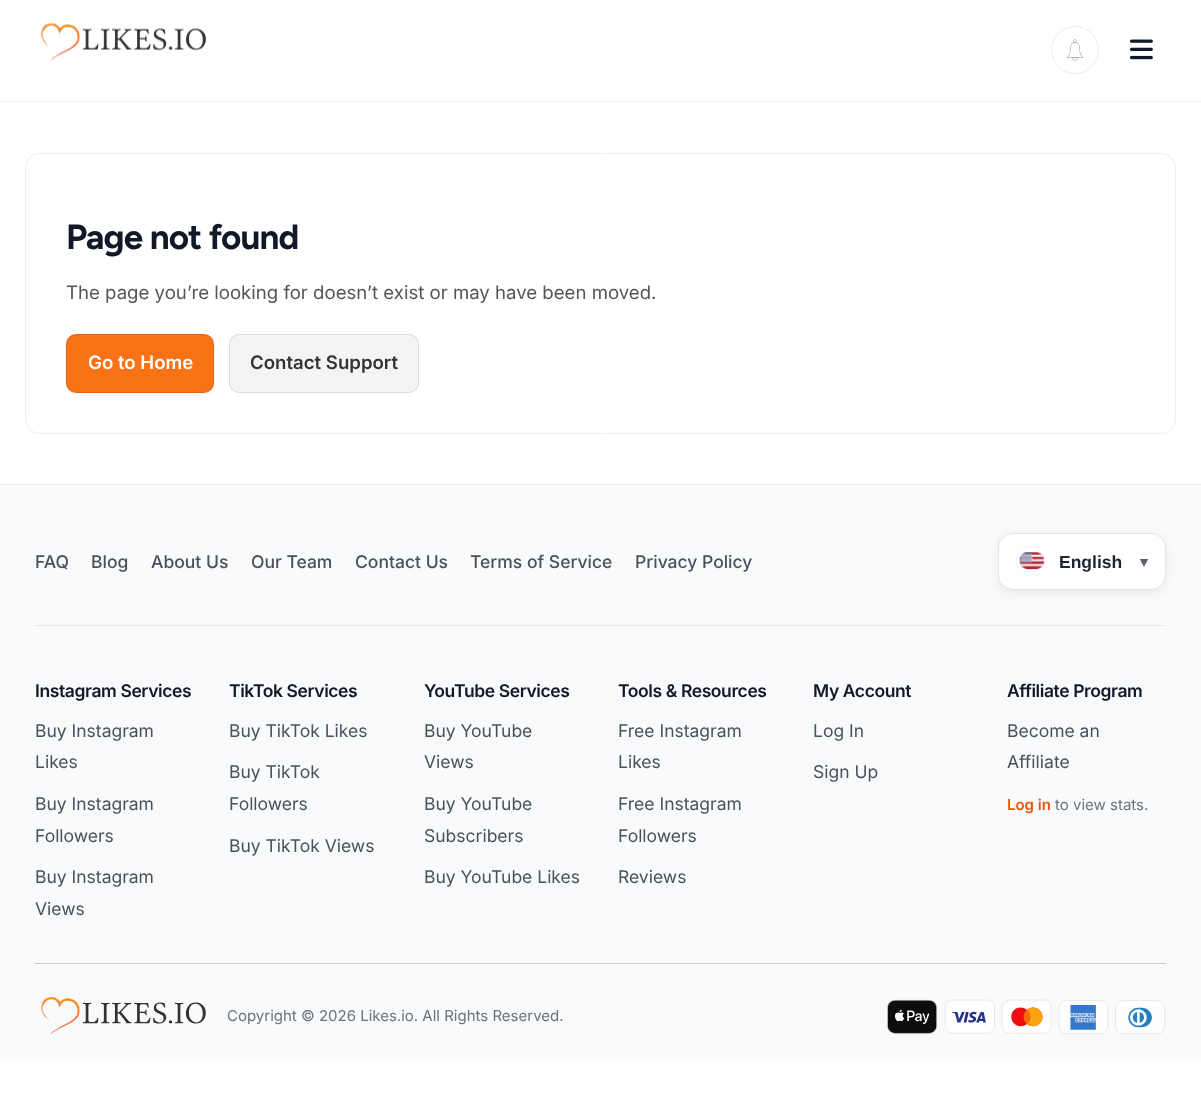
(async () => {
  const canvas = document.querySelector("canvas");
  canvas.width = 1201;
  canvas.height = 1095;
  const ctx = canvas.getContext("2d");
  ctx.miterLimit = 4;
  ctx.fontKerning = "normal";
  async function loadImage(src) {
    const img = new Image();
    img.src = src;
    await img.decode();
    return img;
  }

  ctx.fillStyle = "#ffffff";
  ctx.fillRect(0, 0, 1201, 1095);
  ctx.fillStyle = "#f0f0f0";
  ctx.fillRect(0, 101, 1201, 1);
  ctx.drawImage(await loadImage("img/1.png"), 40, 22, 167, 40);
  ctx.beginPath();
  ctx.arc(1075, 50, 23.5, 0, Math.PI * 2);
  ctx.strokeStyle = "#ebebeb";
  ctx.stroke();
  ctx.drawImage(await loadImage("img/2.png"), 1066, 39, 18, 22);
  ctx.drawImage(await loadImage("img/3.png"), 1129, 39, 24, 21);
  ctx.beginPath();
  ctx.roundRect(25.5, 153.5, 1150, 280, 14.5);
  ctx.strokeStyle = "#eeeeee";
  ctx.stroke();
  ctx.fillStyle = "#f97316";
  ctx.beginPath();
  ctx.roundRect(66, 334, 148, 59, 10);
  ctx.fill();
  ctx.beginPath();
  ctx.roundRect(66.5, 334.5, 147, 58, 9.5);
  ctx.strokeStyle = "rgba(0, 0, 0, 0.1)";
  ctx.stroke();
  ctx.fillStyle = "#f3f4f6";
  ctx.beginPath();
  ctx.roundRect(229, 334, 190, 59, 10);
  ctx.fill();
  ctx.beginPath();
  ctx.roundRect(229.5, 334.5, 189, 58, 9.5);
  ctx.stroke();
  ctx.fillStyle = "#f9fafb";
  ctx.fillRect(0, 485, 1201, 574);
  ctx.fillStyle = "#e6e8ea";
  ctx.fillRect(0, 484, 1201, 1);
  ctx.fillStyle = "rgba(17, 24, 39, 0.08)";
  ctx.filter = "blur(5px)";
  ctx.beginPath();
  ctx.roundRect(998, 535, 168, 58, 15);
  ctx.fill();
  ctx.filter = "none";
  ctx.fillStyle = "#ffffff";
  ctx.beginPath();
  ctx.roundRect(998, 533, 168, 57, 15);
  ctx.fill();
  ctx.beginPath();
  ctx.roundRect(998.5, 533.5, 167, 56, 14.5);
  ctx.strokeStyle = "rgba(17, 24, 39, 0.12)";
  ctx.stroke();
  ctx.beginPath();
  ctx.arc(1031, 561, 14.5, 0, Math.PI * 2);
  ctx.strokeStyle = "#e2e3e5";
  ctx.stroke();
  ctx.drawImage(await loadImage("img/4.png"), 1016, 546, 30, 30);
  ctx.fillStyle = "#e6e8ea";
  ctx.fillRect(35, 625, 1131, 1);
  ctx.fillStyle = "#cccccc";
  ctx.fillRect(35, 963, 1131, 1);
  ctx.drawImage(await loadImage("img/5.png"), 40, 996, 166, 40);
  ctx.drawImage(await loadImage("img/6.png"), 887, 999, 279, 36);
  ctx.letterSpacing = "-0.9px";
  ctx.font = "bold 35px Figtree";
  ctx.fillStyle = "#111827";
  ctx.fillText("Page not found", 66, 249);
  ctx.letterSpacing = "0px";
  ctx.font = "18.6px Inter";
  ctx.fillStyle = "#555555";
  ctx.fillText("The page you’re looking for doesn’t exist or may have been moved.", 66, 299);
  ctx.font = "600 18.6px Inter";
  ctx.fillStyle = "#ffffff";
  ctx.fillText("Go to Home", 88, 369);
  ctx.fillStyle = "#333333";
  ctx.fillText("Contact Support", 250, 369);
  ctx.font = "500 17.5px Inter";
  ctx.fillStyle = "#4b515c";
  for (const [text, x, y] of [
    ["FAQ", 35, 568],
    ["Blog", 91, 568],
    ["About Us", 151, 568],
    ["Our Team", 251, 568],
    ["Contact Us", 355, 568],
    ["Terms of Service", 470, 568],
    ["Privacy Policy", 635, 568],
  ]) {
    ctx.fillText(text, x, y);
  }
  ctx.font = "bold 17.5px Liberation Sans";
  ctx.fillStyle = "#1d2432";
  ctx.fillText("English", 1059, 568);
  ctx.font = "bold 15px DejaVu Sans";
  ctx.fillStyle = "#5e626c";
  ctx.fillText("▾", 1140, 567);
  ctx.letterSpacing = "-0.4px";
  ctx.font = "600 17.5px Inter";
  ctx.fillStyle = "#111827";
  ctx.fillText("Instagram Services", 35, 697);
  ctx.letterSpacing = "0px";
  ctx.font = "17.5px Inter";
  ctx.fillStyle = "#4b515c";
  for (const [text, x, y] of [
    ["Buy Instagram", 35, 737],
    ["Likes", 35, 768],
    ["Buy Instagram", 35, 810],
    ["Followers", 35, 842],
    ["Buy Instagram", 35, 883],
    ["Views", 35, 915],
  ]) {
    ctx.fillText(text, x, y);
  }
  ctx.letterSpacing = "-0.4px";
  ctx.font = "600 17.5px Inter";
  ctx.fillStyle = "#111827";
  ctx.fillText("TikTok Services", 229, 697);
  ctx.letterSpacing = "0px";
  ctx.font = "17.5px Inter";
  ctx.fillStyle = "#4b515c";
  for (const [text, x, y] of [
    ["Buy TikTok Likes", 229, 737],
    ["Buy TikTok", 229, 778],
    ["Followers", 229, 810],
    ["Buy TikTok Views", 229, 852],
  ]) {
    ctx.fillText(text, x, y);
  }
  ctx.letterSpacing = "-0.4px";
  ctx.font = "600 17.5px Inter";
  ctx.fillStyle = "#111827";
  ctx.fillText("YouTube Services", 424, 697);
  ctx.letterSpacing = "0px";
  ctx.font = "17.5px Inter";
  ctx.fillStyle = "#4b515c";
  for (const [text, x, y] of [
    ["Buy YouTube", 424, 737],
    ["Views", 424, 768],
    ["Buy YouTube", 424, 810],
    ["Subscribers", 424, 842],
    ["Buy YouTube Likes", 424, 883],
  ]) {
    ctx.fillText(text, x, y);
  }
  ctx.letterSpacing = "-0.4px";
  ctx.font = "600 17.5px Inter";
  ctx.fillStyle = "#111827";
  ctx.fillText("Tools & Resources", 618, 697);
  ctx.letterSpacing = "0px";
  ctx.font = "17.5px Inter";
  ctx.fillStyle = "#4b515c";
  for (const [text, x, y] of [
    ["Free Instagram", 618, 737],
    ["Likes", 618, 768],
    ["Free Instagram", 618, 810],
    ["Followers", 618, 842],
    ["Reviews", 618, 883],
  ]) {
    ctx.fillText(text, x, y);
  }
  ctx.letterSpacing = "-0.4px";
  ctx.font = "600 17.5px Inter";
  ctx.fillStyle = "#111827";
  ctx.fillText("My Account", 813, 697);
  ctx.letterSpacing = "0px";
  ctx.font = "17.5px Inter";
  ctx.fillStyle = "#4b515c";
  ctx.fillText("Log In", 813, 737);
  ctx.fillText("Sign Up", 813, 778);
  ctx.letterSpacing = "-0.4px";
  ctx.font = "600 17.5px Inter";
  ctx.fillStyle = "#111827";
  ctx.fillText("Affiliate Program", 1007, 697);
  ctx.letterSpacing = "0px";
  ctx.font = "17.5px Inter";
  ctx.fillStyle = "#4b515c";
  ctx.fillText("Become an", 1007, 737);
  ctx.fillText("Affiliate", 1007, 768);
  ctx.font = "600 15px Inter";
  ctx.fillStyle = "#ea580c";
  ctx.fillText("Log in", 1007, 810);
  ctx.font = "15px Inter";
  ctx.fillStyle = "#6b7280";
  ctx.fillText("to view stats.", 1055, 810);
  ctx.fillText("Copyright © 2026 Likes.io. All Rights Reserved.", 227, 1021);
})();
